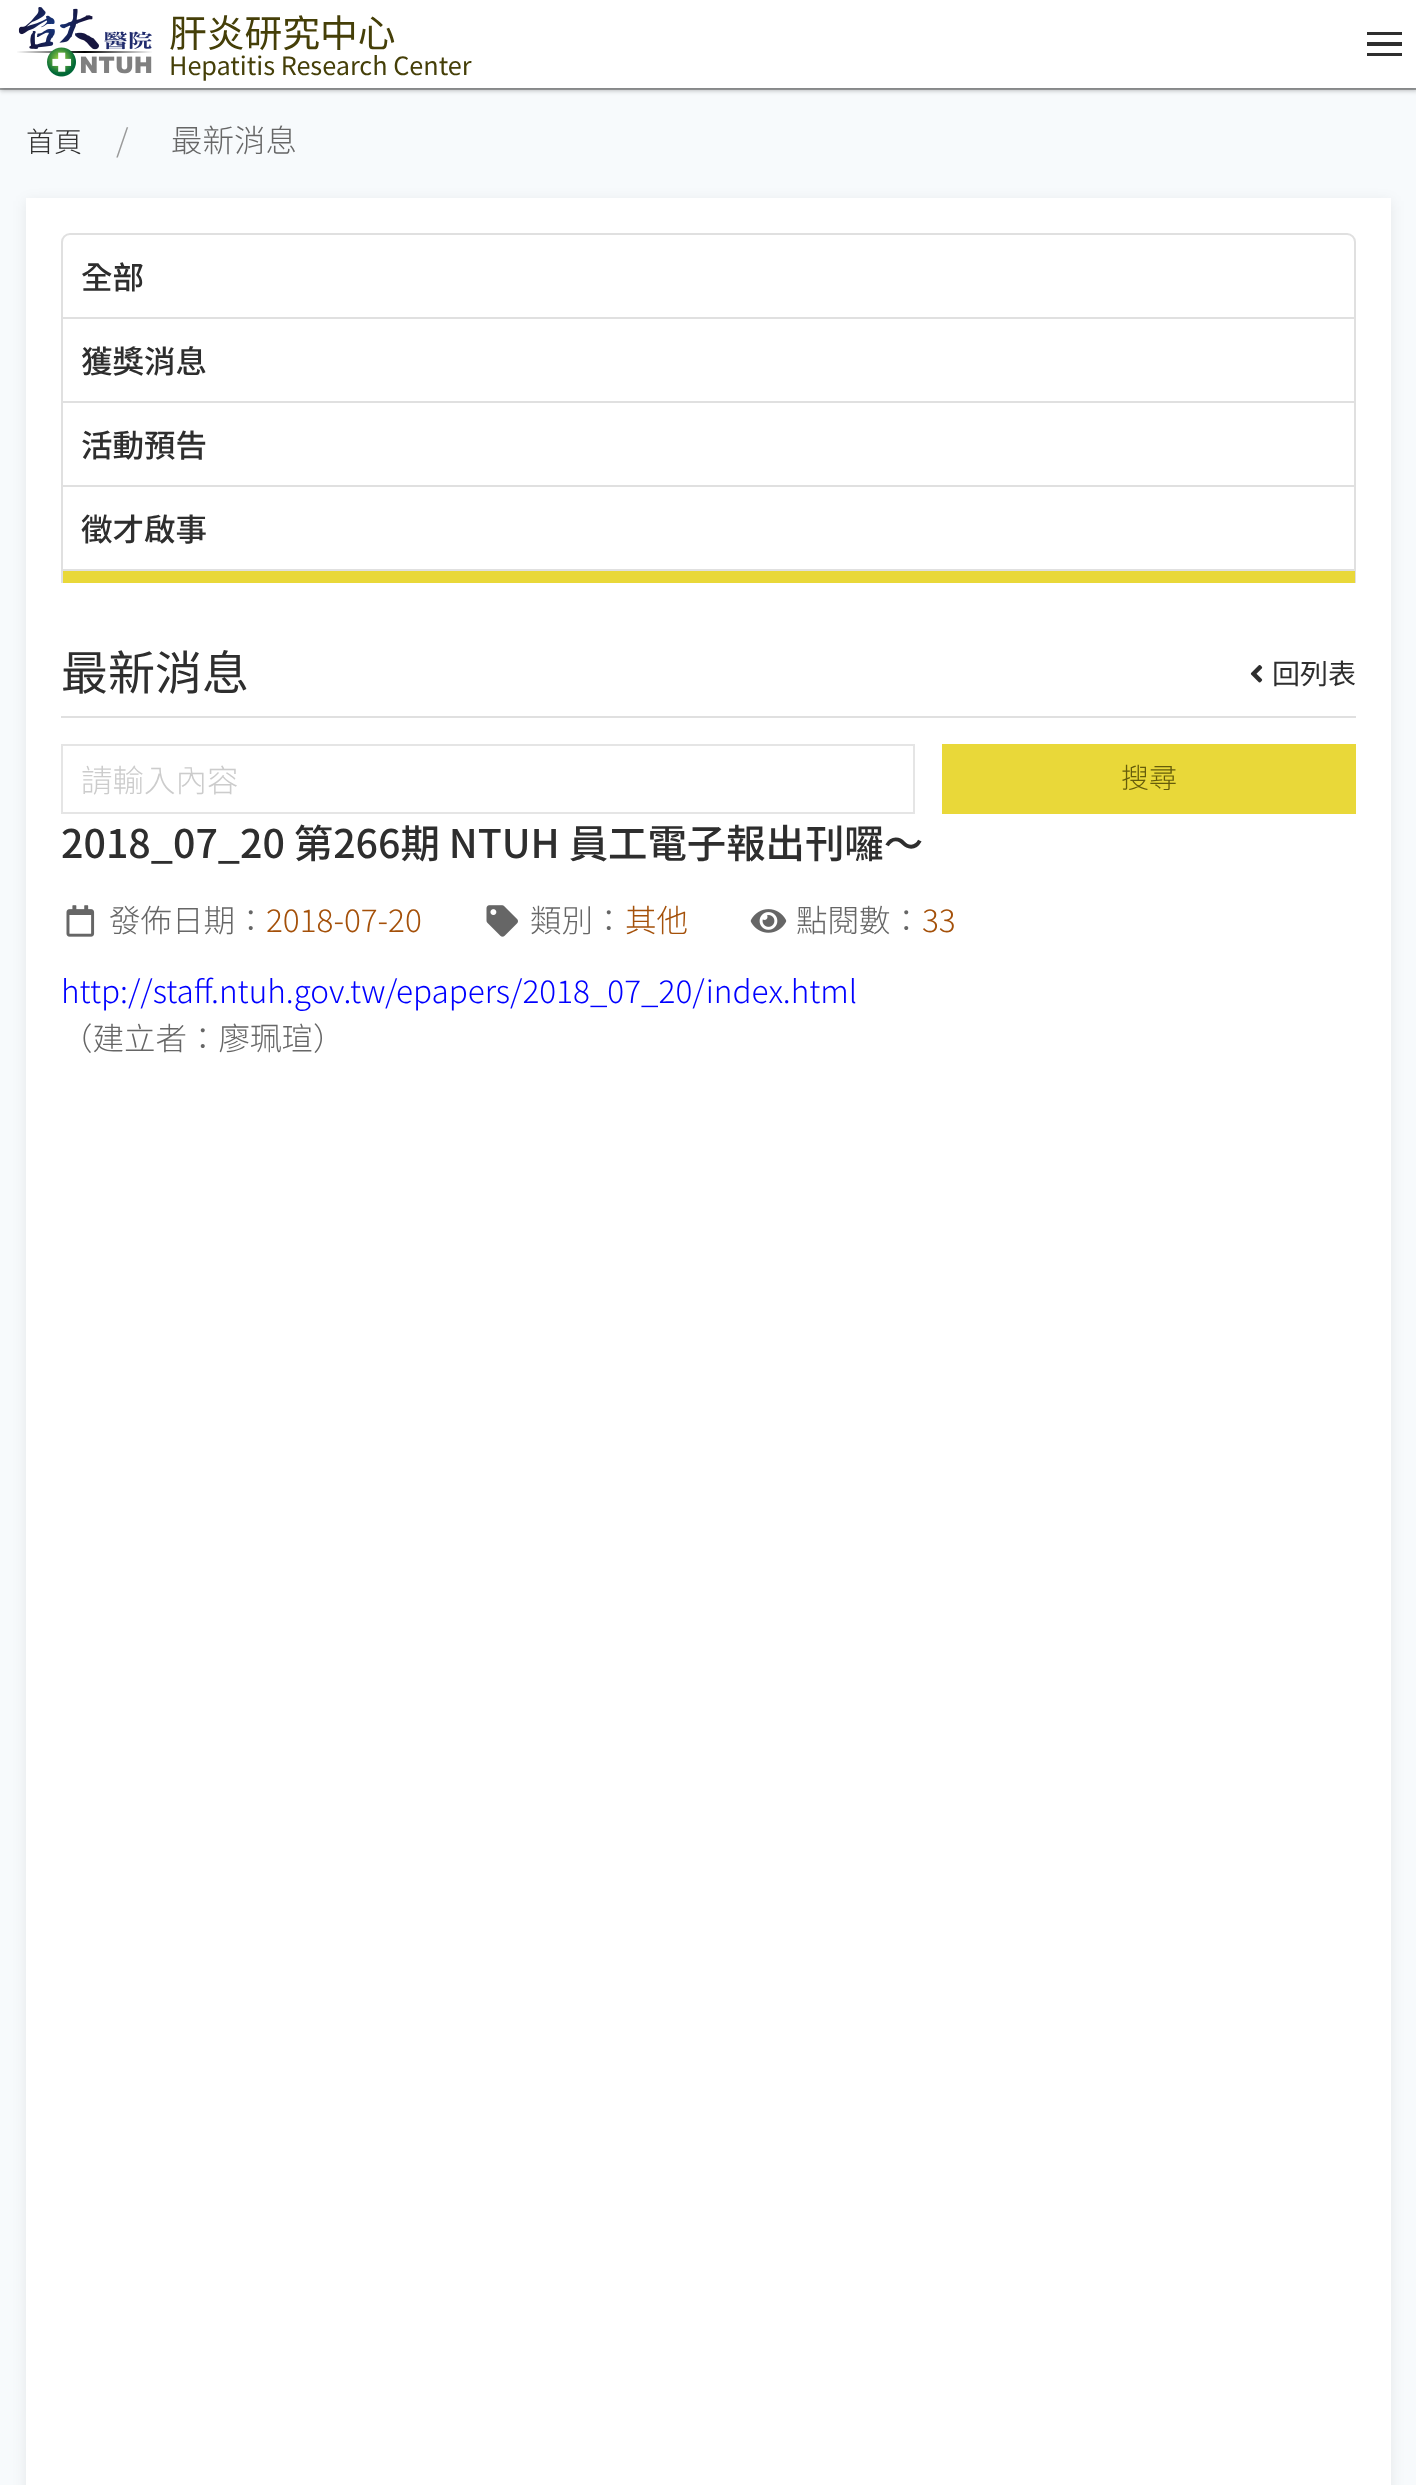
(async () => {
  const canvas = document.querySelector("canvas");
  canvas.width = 1416;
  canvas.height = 2485;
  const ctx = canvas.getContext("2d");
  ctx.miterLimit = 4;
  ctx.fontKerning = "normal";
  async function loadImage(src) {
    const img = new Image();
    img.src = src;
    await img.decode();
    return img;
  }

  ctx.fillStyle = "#f7fafc";
  ctx.fillRect(0, 0, 1416, 2485);
  ctx.fillStyle = "rgba(0, 0, 0, 0.06)";
  ctx.filter = "blur(2px)";
  ctx.beginPath();
  ctx.rect(0, 2, 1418, 89);
  ctx.fill();
  ctx.filter = "none";
  ctx.fillStyle = "rgba(0, 0, 0, 0.1)";
  ctx.filter = "blur(2.5px)";
  ctx.beginPath();
  ctx.rect(0, 2, 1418, 89);
  ctx.fill();
  ctx.filter = "none";
  ctx.fillStyle = "rgba(0, 0, 0, 0.06)";
  ctx.filter = "blur(2px)";
  ctx.beginPath();
  ctx.rect(0, 2, 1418, 87);
  ctx.fill();
  ctx.filter = "none";
  ctx.fillStyle = "rgba(0, 0, 0, 0.1)";
  ctx.filter = "blur(2.5px)";
  ctx.beginPath();
  ctx.rect(0, 2, 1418, 87);
  ctx.fill();
  ctx.filter = "none";
  ctx.fillStyle = "#ffffff";
  ctx.fillRect(0, 0, 1416, 88);
  ctx.drawImage(await loadImage("img/1.png"), 17, 7, 135, 70);
  for (const [x, y, w, h, color] of [
    [1367, 42, 35, 4, "#2e2e2e"],
    [1367, 32, 35, 3, "#2e2e2e"],
    [1367, 53, 35, 3, "#2e2e2e"],
    [0, 88, 1416, 2, "rgba(0, 0, 0, 0.3)"],
  ]) {
    ctx.fillStyle = color;
    ctx.fillRect(x, y, w, h);
  }
  ctx.fillStyle = "rgba(0, 0, 0, 0.08)";
  ctx.filter = "blur(7px)";
  ctx.beginPath();
  ctx.rect(26, 201, 1365, 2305);
  ctx.fill();
  ctx.filter = "none";
  ctx.fillStyle = "#ffffff";
  ctx.fillRect(26, 198, 1365, 2287);
  ctx.beginPath();
  ctx.roundRect(62, 234, 1293, 84, [8, 8, 0, 0]);
  ctx.strokeStyle = "#e0e0e0";
  ctx.lineWidth = 2;
  ctx.stroke();
  ctx.strokeRect(62, 318, 1293, 84);
  ctx.strokeRect(62, 402, 1293, 84);
  ctx.strokeRect(62, 486, 1293, 84);
  ctx.fillStyle = "#e0e0e0";
  ctx.fillRect(61, 716, 1295, 2);
  ctx.drawImage(await loadImage("img/2.png"), 1250, 665, 13, 18);
  ctx.strokeStyle = "#e5e5e5";
  ctx.strokeRect(62, 745, 852, 68);
  ctx.fillStyle = "#e9d839";
  ctx.fillRect(942, 744, 414, 70);
  ctx.drawImage(await loadImage("img/3.png"), 66, 905, 29, 32);
  ctx.drawImage(await loadImage("img/4.png"), 486, 905, 32, 32);
  ctx.drawImage(await loadImage("img/5.png"), 750, 909, 37, 24);
  ctx.font = "37.75px Noto Sans TC";
  ctx.fillStyle = "#453f08";
  ctx.fillText("肝炎研究中心", 169, 47);
  ctx.font = "25.25px Noto Sans TC";
  ctx.fillText("Hepatitis Research Center", 169, 75);
  ctx.font = "300 28px Noto Sans TC";
  ctx.fillStyle = "#2e2e2e";
  ctx.fillText("首頁", 26, 152);
  ctx.font = "300 31.5px Noto Sans TC";
  ctx.fillStyle = "#999999";
  ctx.fillText("/", 116, 152);
  ctx.fillStyle = "#666666";
  ctx.fillText("最新消息", 171, 152);
  ctx.font = "500 31.5px Noto Sans TC";
  ctx.fillStyle = "#2e2e2e";
  for (const [text, x, y] of [
    ["全部", 81, 289],
    ["獲獎消息", 81, 373],
    ["活動預告", 81, 457],
    ["徵才啟事", 81, 541],
  ]) {
    ctx.fillText(text, x, y);
  }
  ctx.font = "47px Noto Sans TC";
  ctx.fillText("最新消息", 61, 690);
  ctx.save();
  ctx.beginPath();
  ctx.rect(61, 233, 1295, 350);
  ctx.clip();
  ctx.beginPath();
  ctx.roundRect(62, 570, 1293, 84, [0, 0, 8, 8]);
  ctx.strokeStyle = "#e0e0e0";
  ctx.stroke();
  ctx.restore();
  ctx.fillStyle = "#e9d839";
  ctx.fillRect(63, 571, 1292, 12);
  ctx.font = "28px Noto Sans TC";
  ctx.fillStyle = "#2e2e2e";
  ctx.fillText("回列表", 1272, 684);
  ctx.font = "300 31.5px Noto Sans TC";
  ctx.fillStyle = "#cccccc";
  ctx.fillText("請輸入內容", 81, 792);
  ctx.font = "300 28px Noto Sans TC";
  ctx.fillStyle = "#655c0b";
  ctx.fillText("搜尋", 1121, 788);
  ctx.font = "500 39.4px Noto Sans TC";
  ctx.fillStyle = "#2e2e2e";
  ctx.fillText("2018_07_20 第266期 NTUH 員工電子報出刊囉～", 61, 858);
  ctx.font = "300 31.5px Noto Sans TC";
  ctx.fillStyle = "#666666";
  ctx.fillText("發佈日期：", 109, 932);
  ctx.fillStyle = "#a45009";
  ctx.fillText("2018-07-20", 266, 932);
  ctx.fillStyle = "#666666";
  ctx.fillText("類別：", 530, 932);
  ctx.fillStyle = "#a45009";
  ctx.fillText("其他", 625, 932);
  ctx.fillStyle = "#666666";
  ctx.fillText("點閱數：", 796, 932);
  ctx.fillStyle = "#a45009";
  ctx.fillText("33", 922, 932);
  ctx.fillStyle = "#0000ff";
  ctx.fillText("http://staff.ntuh.gov.tw/epapers/2018_07_20/index.html", 61, 1003);
  ctx.fillStyle = "#666666";
  ctx.fillText("（建立者：廖珮瑄）", 61, 1050);
})();
